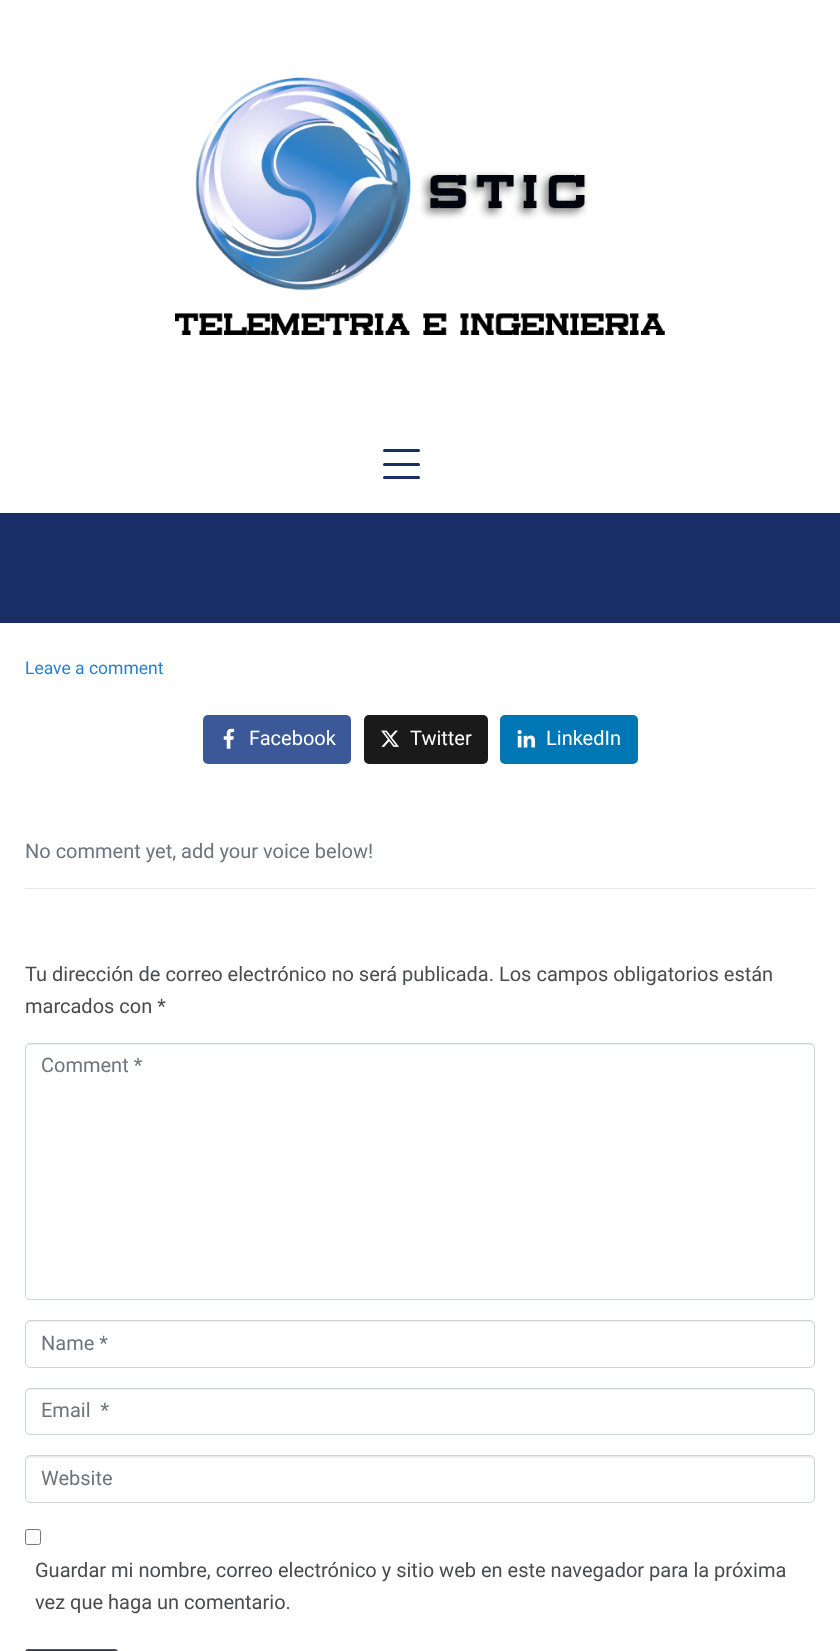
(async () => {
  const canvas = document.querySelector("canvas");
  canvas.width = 840;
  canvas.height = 1651;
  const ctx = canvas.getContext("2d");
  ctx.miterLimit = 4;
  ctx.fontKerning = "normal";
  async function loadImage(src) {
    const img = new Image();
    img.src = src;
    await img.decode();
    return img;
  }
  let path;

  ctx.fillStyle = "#ffffff";
  ctx.fillRect(0, 0, 840, 1651);
  ctx.drawImage(await loadImage("img/1.png"), 175, 77, 490, 258);
  ctx.fillStyle = "#192d66";
  ctx.beginPath();
  ctx.roundRect(383, 463, 37, 3, 1.5);
  ctx.fill();
  ctx.beginPath();
  ctx.roundRect(383, 449, 37, 3, 1.5);
  ctx.fill();
  ctx.beginPath();
  ctx.roundRect(383, 476, 37, 3, 1.5);
  ctx.fill();
  ctx.fillRect(0, 513, 840, 110);
  ctx.fillStyle = "#3b5998";
  ctx.beginPath();
  ctx.roundRect(203, 715, 148, 49, 5);
  ctx.fill();
  ctx.drawImage(await loadImage("img/2.png"), 223, 728, 12, 21);
  ctx.fillStyle = "#1a1a1a";
  ctx.beginPath();
  ctx.roundRect(364, 715, 124, 49, 5);
  ctx.fill();
  ctx.drawImage(await loadImage("img/3.png"), 381, 730, 18, 17);
  ctx.fillStyle = "#0077b5";
  ctx.beginPath();
  ctx.roundRect(500, 715, 138, 49, 5);
  ctx.fill();
  ctx.drawImage(await loadImage("img/4.png"), 517, 730, 18, 18);
  ctx.fillStyle = "#e6e6e6";
  ctx.fillRect(25, 888, 790, 1);
  ctx.fillStyle = "#ececec";
  path = new Path2D("M30 1045H810C812 1045 814 1047 814 1049V1048C814 1046 812 1044 810 1044H30C28 1044 26 1046 26 1048V1049C26 1047 28 1045 30 1045Z");
  ctx.fill(path);
  ctx.beginPath();
  ctx.roundRect(25.5, 1043.5, 789, 256, 4.5);
  ctx.strokeStyle = "#ced4da";
  ctx.stroke();
  path = new Path2D("M30 1322H810C812 1322 814 1324 814 1326V1325C814 1323 812 1321 810 1321H30C28 1321 26 1323 26 1325V1326C26 1324 28 1322 30 1322Z");
  ctx.fill(path);
  ctx.beginPath();
  ctx.roundRect(25.5, 1320.5, 789, 47, 4.5);
  ctx.stroke();
  path = new Path2D("M30 1390H810C812 1390 814 1392 814 1394V1393C814 1391 812 1389 810 1389H30C28 1389 26 1391 26 1393V1394C26 1392 28 1390 30 1390Z");
  ctx.fill(path);
  ctx.beginPath();
  ctx.roundRect(25.5, 1388.5, 789, 46, 4.5);
  ctx.stroke();
  path = new Path2D("M30 1458H810C812 1458 814 1459 814 1461V1460C814 1458 812 1456 810 1456H30C28 1456 26 1458 26 1460V1461C26 1459 28 1458 30 1458Z");
  ctx.fill(path);
  ctx.beginPath();
  ctx.roundRect(25.5, 1455.5, 789, 47, 4.5);
  ctx.stroke();
  ctx.beginPath();
  ctx.roundRect(25.5, 1529.5, 15, 15, 2);
  ctx.strokeStyle = "#767676";
  ctx.stroke();
  ctx.fillStyle = "#343a40";
  ctx.beginPath();
  ctx.roundRect(25, 1649, 93, 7, 5);
  ctx.fill();
  ctx.fillStyle = "rgba(255, 255, 255, 0.15)";
  path = new Path2D("M30 1650H112C115 1650 118 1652 118 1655C118 1646 105 1649 99 1649H44C38 1649 25 1646 25 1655C25 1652 27 1650 30 1650Z");
  ctx.fill(path);
  ctx.font = "17.5px Roboto";
  ctx.fillStyle = "#2a80ca";
  ctx.fillText("Leave a comment", 25, 674);
  ctx.font = "20px Roboto";
  ctx.fillStyle = "#ffffff";
  for (const [text, x, y] of [
    ["Facebook", 249, 745],
    ["Twitter", 410, 745],
    ["LinkedIn", 546, 745],
  ]) {
    ctx.fillText(text, x, y);
  }
  ctx.fillStyle = "#6c757d";
  ctx.fillText("No comment yet, add your voice below!", 25, 858);
  ctx.fillStyle = "#4a4b4d";
  ctx.fillText("Tu dirección de correo electrónico no será publicada. Los campos obligatorios están", 25, 981);
  ctx.fillText("marcados con *", 25, 1013);
  ctx.fillStyle = "#6c757d";
  for (const [text, x, y] of [
    ["Comment *", 41, 1072],
    ["Name *", 41, 1350],
    ["Email  *", 41, 1417],
    ["Website", 41, 1485],
  ]) {
    ctx.fillText(text, x, y);
  }
  ctx.fillStyle = "#4a4b4d";
  ctx.fillText("Guardar mi nombre, correo electrónico y sitio web en este navegador para la próxima", 35, 1577);
  ctx.fillText("vez que haga un comentario.", 35, 1609);
})();
